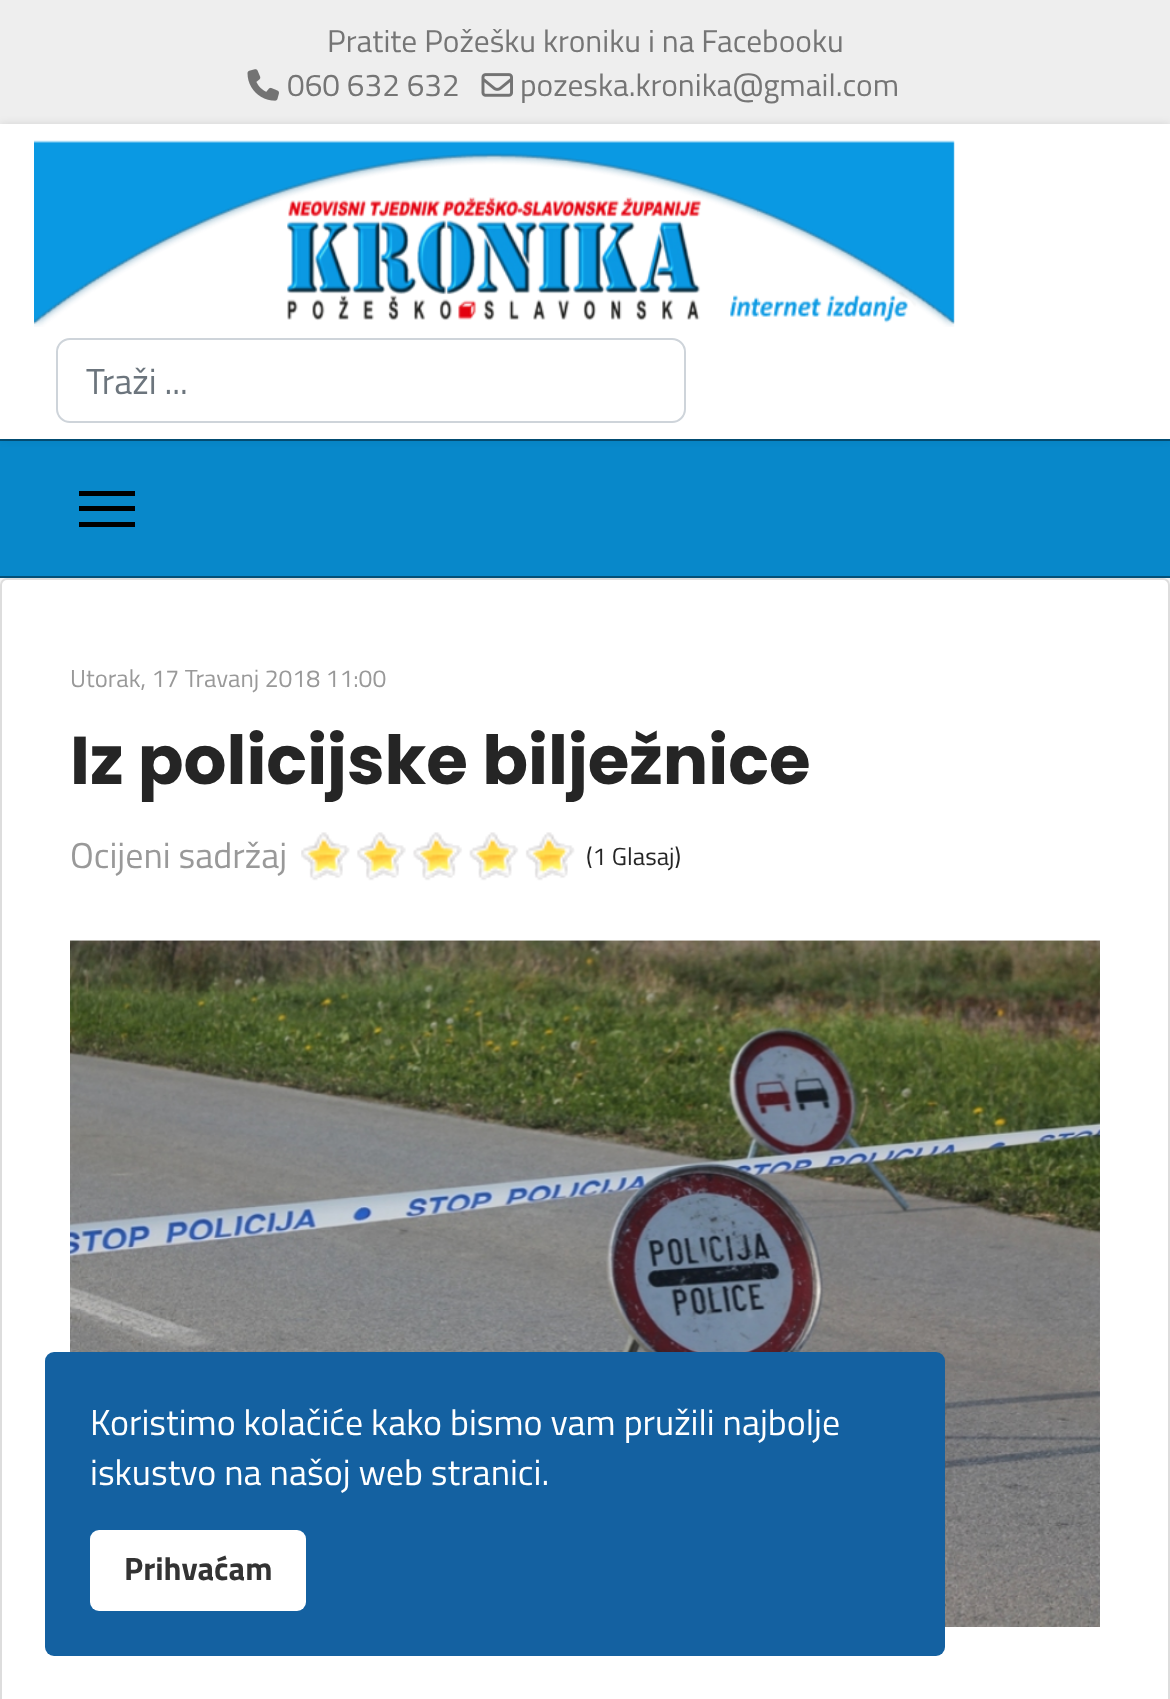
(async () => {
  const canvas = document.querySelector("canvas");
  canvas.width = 1170;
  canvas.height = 1699;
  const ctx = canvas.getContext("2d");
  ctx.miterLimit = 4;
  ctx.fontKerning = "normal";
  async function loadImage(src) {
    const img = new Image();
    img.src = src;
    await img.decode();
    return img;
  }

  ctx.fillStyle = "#eeeeee";
  ctx.fillRect(0, 0, 1170, 1699);
  ctx.drawImage(await loadImage("img/1.png"), 247, 69, 32, 32);
  ctx.drawImage(await loadImage("img/2.png"), 481, 73, 32, 24);
  ctx.fillStyle = "#0888ca";
  ctx.fillRect(0, 441, 1170, 135);
  ctx.fillStyle = "#045077";
  ctx.fillRect(0, 439, 1170, 2);
  ctx.fillStyle = "rgba(0, 0, 0, 0.1)";
  ctx.filter = "blur(4.5px)";
  ctx.beginPath();
  ctx.rect(0, 124, 1170, 315);
  ctx.fill();
  ctx.filter = "none";
  ctx.fillStyle = "#ffffff";
  ctx.fillRect(0, 124, 1170, 315);
  ctx.drawImage(await loadImage("img/3.png"), 34, 140, 921, 187);
  ctx.beginPath();
  ctx.roundRect(57, 339, 628, 83, 13);
  ctx.strokeStyle = "#ced4da";
  ctx.lineWidth = 2;
  ctx.stroke();
  for (const [x, y, w, h, color] of [
    [0, 576, 1170, 2, "#045077"],
    [79, 491, 56, 5, "#000000"],
    [79, 506, 56, 5, "#000000"],
    [79, 522, 56, 5, "#000000"],
    [0, 578, 1170, 7, "#f4f4f4"],
  ]) {
    ctx.fillStyle = color;
    ctx.fillRect(x, y, w, h);
  }
  ctx.fillStyle = "#ffffff";
  ctx.beginPath();
  ctx.roundRect(1, 579, 1168, 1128, 6);
  ctx.fill();
  ctx.strokeStyle = "#dddddd";
  ctx.stroke();
  ctx.drawImage(await loadImage("img/4.png"), 301, 834, 274, 47);
  ctx.drawImage(await loadImage("img/5.png"), 301, 832, 273, 45);
  ctx.drawImage(await loadImage("img/6.png"), 70, 940, 1030, 687);
  ctx.fillStyle = "#1461a1";
  ctx.beginPath();
  ctx.roundRect(45, 1352, 900, 304, 9);
  ctx.fill();
  ctx.fillStyle = "#ffffff";
  ctx.beginPath();
  ctx.roundRect(90, 1530, 216, 81, 9);
  ctx.fill();
  ctx.font = "31.5px Titillium Web";
  ctx.fillStyle = "#757575";
  for (const [text, x, y] of [
    ["Pratite Požešku kroniku i na Facebooku", 327, 52],
    ["060 632 632", 287, 96],
    ["pozeska.kronika@gmail.com", 520, 96],
  ]) {
    ctx.fillText(text, x, y);
  }
  ctx.font = "36px Titillium Web";
  ctx.fillStyle = "#6c757d";
  ctx.fillText("Traži ...", 86, 394);
  ctx.font = "24.75px Titillium Web";
  ctx.fillStyle = "#999999";
  ctx.fillText("Utorak, 17 Travanj 2018 11:00", 70, 687);
  ctx.font = "bold 67.5px Poppins";
  ctx.fillStyle = "#252525";
  ctx.fillText("Iz policijske bilježnice", 70, 784);
  ctx.font = "36px Titillium Web";
  ctx.fillStyle = "#999999";
  ctx.fillText("Ocijeni sadržaj", 70, 868);
  ctx.font = "24.75px Titillium Web";
  ctx.fillStyle = "#252525";
  ctx.fillText("(1 Glasaj)", 586, 865);
  ctx.font = "36px Titillium Web";
  ctx.fillStyle = "#ffffff";
  ctx.fillText("Koristimo kolačiće kako bismo vam pružili najbolje", 90, 1435);
  ctx.fillText("iskustvo na našoj web stranici.", 90, 1485);
  ctx.font = "bold 32.5px Titillium Web";
  ctx.fillStyle = "#333333";
  ctx.fillText("Prihvaćam", 124, 1580);
})();
